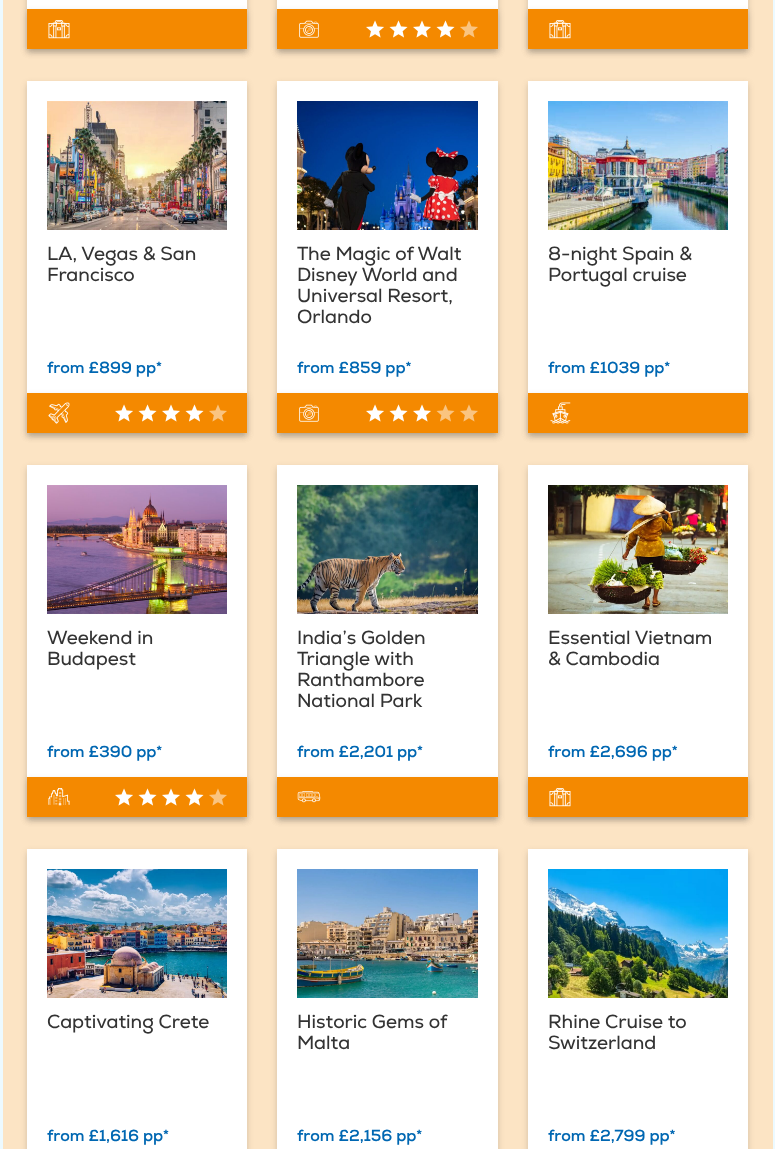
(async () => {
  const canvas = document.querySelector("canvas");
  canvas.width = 775;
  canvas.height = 1149;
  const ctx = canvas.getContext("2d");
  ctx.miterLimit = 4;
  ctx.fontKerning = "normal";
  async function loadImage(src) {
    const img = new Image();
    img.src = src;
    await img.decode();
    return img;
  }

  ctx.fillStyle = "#edfaff";
  ctx.fillRect(0, 0, 775, 1149);
  ctx.fillStyle = "#fce4c4";
  ctx.fillRect(3, 0, 770, 1149);
  ctx.fillStyle = "rgba(34, 34, 34, 0.2)";
  ctx.filter = "blur(3px)";
  ctx.beginPath();
  ctx.rect(27, -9, 220, 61);
  ctx.fill();
  ctx.filter = "none";
  ctx.fillStyle = "#ffffff";
  ctx.fillRect(27, 0, 220, 9);
  ctx.fillStyle = "rgba(34, 34, 34, 0.2)";
  ctx.filter = "blur(3px)";
  ctx.beginPath();
  ctx.rect(27, 12, 220, 40);
  ctx.fill();
  ctx.filter = "none";
  ctx.fillStyle = "#f48900";
  ctx.fillRect(27, 9, 220, 40);
  ctx.drawImage(await loadImage("img/1.png"), 48, 20, 22, 19);
  ctx.fillStyle = "rgba(34, 34, 34, 0.2)";
  ctx.filter = "blur(3px)";
  ctx.beginPath();
  ctx.rect(277, -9, 221, 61);
  ctx.fill();
  ctx.filter = "none";
  ctx.fillStyle = "#ffffff";
  ctx.fillRect(277, 0, 221, 9);
  ctx.fillStyle = "rgba(34, 34, 34, 0.2)";
  ctx.filter = "blur(3px)";
  ctx.beginPath();
  ctx.rect(277, 12, 221, 40);
  ctx.fill();
  ctx.filter = "none";
  ctx.fillStyle = "#f48900";
  ctx.fillRect(277, 9, 221, 40);
  ctx.drawImage(await loadImage("img/2.png"), 299, 20, 20, 18);
  ctx.drawImage(await loadImage("img/3.png"), 366, 20, 112, 18);
  ctx.fillStyle = "rgba(34, 34, 34, 0.2)";
  ctx.filter = "blur(3px)";
  ctx.beginPath();
  ctx.rect(528, -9, 220, 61);
  ctx.fill();
  ctx.filter = "none";
  ctx.fillStyle = "#ffffff";
  ctx.fillRect(528, 0, 220, 9);
  ctx.fillStyle = "rgba(34, 34, 34, 0.2)";
  ctx.filter = "blur(3px)";
  ctx.beginPath();
  ctx.rect(528, 12, 220, 40);
  ctx.fill();
  ctx.filter = "none";
  ctx.fillStyle = "#f48900";
  ctx.fillRect(528, 9, 220, 40);
  ctx.drawImage(await loadImage("img/1.png"), 549, 20, 22, 19);
  ctx.fillStyle = "rgba(34, 34, 34, 0.2)";
  ctx.filter = "blur(3px)";
  ctx.beginPath();
  ctx.rect(27, 84, 220, 352);
  ctx.fill();
  ctx.filter = "none";
  ctx.fillStyle = "#ffffff";
  ctx.fillRect(27, 81, 220, 312);
  ctx.drawImage(await loadImage("img/4.png"), 47, 101, 180, 129);
  ctx.fillStyle = "rgba(34, 34, 34, 0.2)";
  ctx.filter = "blur(3px)";
  ctx.beginPath();
  ctx.rect(27, 396, 220, 40);
  ctx.fill();
  ctx.filter = "none";
  ctx.fillStyle = "#f48900";
  ctx.fillRect(27, 393, 220, 40);
  ctx.drawImage(await loadImage("img/5.png"), 48, 402, 22, 22);
  ctx.drawImage(await loadImage("img/3.png"), 115, 404, 112, 18);
  ctx.fillStyle = "rgba(34, 34, 34, 0.2)";
  ctx.filter = "blur(3px)";
  ctx.beginPath();
  ctx.rect(277, 84, 221, 352);
  ctx.fill();
  ctx.filter = "none";
  ctx.fillStyle = "#ffffff";
  ctx.fillRect(277, 81, 221, 312);
  ctx.drawImage(await loadImage("img/6.png"), 297, 101, 181, 129);
  ctx.fillStyle = "rgba(34, 34, 34, 0.2)";
  ctx.filter = "blur(3px)";
  ctx.beginPath();
  ctx.rect(277, 396, 221, 40);
  ctx.fill();
  ctx.filter = "none";
  ctx.fillStyle = "#f48900";
  ctx.fillRect(277, 393, 221, 40);
  ctx.drawImage(await loadImage("img/2.png"), 299, 404, 20, 18);
  ctx.drawImage(await loadImage("img/7.png"), 366, 404, 112, 18);
  ctx.fillStyle = "rgba(34, 34, 34, 0.2)";
  ctx.filter = "blur(3px)";
  ctx.beginPath();
  ctx.rect(528, 84, 220, 352);
  ctx.fill();
  ctx.filter = "none";
  ctx.fillStyle = "#ffffff";
  ctx.fillRect(528, 81, 220, 312);
  ctx.drawImage(await loadImage("img/8.png"), 548, 101, 180, 129);
  ctx.fillStyle = "rgba(34, 34, 34, 0.2)";
  ctx.filter = "blur(3px)";
  ctx.beginPath();
  ctx.rect(528, 396, 220, 40);
  ctx.fill();
  ctx.filter = "none";
  ctx.fillStyle = "#f48900";
  ctx.fillRect(528, 393, 220, 40);
  ctx.drawImage(await loadImage("img/9.png"), 550, 402, 21, 22);
  ctx.fillStyle = "rgba(34, 34, 34, 0.2)";
  ctx.filter = "blur(3px)";
  ctx.beginPath();
  ctx.rect(27, 468, 220, 352);
  ctx.fill();
  ctx.filter = "none";
  ctx.fillStyle = "#ffffff";
  ctx.fillRect(27, 465, 220, 312);
  ctx.drawImage(await loadImage("img/10.png"), 47, 485, 180, 129);
  ctx.fillStyle = "rgba(34, 34, 34, 0.2)";
  ctx.filter = "blur(3px)";
  ctx.beginPath();
  ctx.rect(27, 780, 220, 40);
  ctx.fill();
  ctx.filter = "none";
  ctx.fillStyle = "#f48900";
  ctx.fillRect(27, 777, 220, 40);
  ctx.drawImage(await loadImage("img/11.png"), 48, 788, 22, 18);
  ctx.drawImage(await loadImage("img/3.png"), 115, 788, 112, 18);
  ctx.fillStyle = "rgba(34, 34, 34, 0.2)";
  ctx.filter = "blur(3px)";
  ctx.beginPath();
  ctx.rect(277, 468, 221, 352);
  ctx.fill();
  ctx.filter = "none";
  ctx.fillStyle = "#ffffff";
  ctx.fillRect(277, 465, 221, 312);
  ctx.drawImage(await loadImage("img/12.png"), 297, 485, 181, 129);
  ctx.fillStyle = "rgba(34, 34, 34, 0.2)";
  ctx.filter = "blur(3px)";
  ctx.beginPath();
  ctx.rect(277, 780, 221, 40);
  ctx.fill();
  ctx.filter = "none";
  ctx.fillStyle = "#f48900";
  ctx.fillRect(277, 777, 221, 40);
  ctx.drawImage(await loadImage("img/13.png"), 297, 791, 24, 12);
  ctx.fillStyle = "rgba(34, 34, 34, 0.2)";
  ctx.filter = "blur(3px)";
  ctx.beginPath();
  ctx.rect(528, 468, 220, 352);
  ctx.fill();
  ctx.filter = "none";
  ctx.fillStyle = "#ffffff";
  ctx.fillRect(528, 465, 220, 312);
  ctx.drawImage(await loadImage("img/14.png"), 548, 485, 180, 129);
  ctx.fillStyle = "rgba(34, 34, 34, 0.2)";
  ctx.filter = "blur(3px)";
  ctx.beginPath();
  ctx.rect(528, 780, 220, 40);
  ctx.fill();
  ctx.filter = "none";
  ctx.fillStyle = "#f48900";
  ctx.fillRect(528, 777, 220, 40);
  ctx.drawImage(await loadImage("img/1.png"), 549, 788, 22, 19);
  ctx.fillStyle = "rgba(34, 34, 34, 0.2)";
  ctx.filter = "blur(3px)";
  ctx.beginPath();
  ctx.rect(27, 852, 220, 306);
  ctx.fill();
  ctx.filter = "none";
  ctx.fillStyle = "#ffffff";
  ctx.fillRect(27, 849, 220, 300);
  ctx.drawImage(await loadImage("img/15.png"), 47, 869, 180, 129);
  ctx.fillStyle = "rgba(34, 34, 34, 0.2)";
  ctx.filter = "blur(3px)";
  ctx.beginPath();
  ctx.rect(277, 852, 221, 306);
  ctx.fill();
  ctx.filter = "none";
  ctx.fillStyle = "#ffffff";
  ctx.fillRect(277, 849, 221, 300);
  ctx.drawImage(await loadImage("img/16.png"), 297, 869, 181, 129);
  ctx.fillStyle = "rgba(34, 34, 34, 0.2)";
  ctx.filter = "blur(3px)";
  ctx.beginPath();
  ctx.rect(528, 852, 220, 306);
  ctx.fill();
  ctx.filter = "none";
  ctx.fillStyle = "#ffffff";
  ctx.fillRect(528, 849, 220, 300);
  ctx.drawImage(await loadImage("img/17.png"), 548, 869, 180, 129);
  ctx.font = "19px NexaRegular";
  ctx.fillStyle = "#333333";
  ctx.fillText("LA, Vegas & San", 47, 260);
  ctx.fillText("Francisco", 47, 281);
  ctx.font = "bold 16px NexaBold";
  ctx.fillStyle = "#0067b2";
  ctx.fillText("from £899 pp*", 47, 373);
  ctx.font = "19px NexaRegular";
  ctx.fillStyle = "#333333";
  for (const [text, x, y] of [
    ["The Magic of Walt", 297, 260],
    ["Disney World and", 297, 281],
    ["Universal Resort,", 297, 302],
    ["Orlando", 297, 323],
  ]) {
    ctx.fillText(text, x, y);
  }
  ctx.font = "bold 16px NexaBold";
  ctx.fillStyle = "#0067b2";
  ctx.fillText("from £859 pp*", 297, 373);
  ctx.font = "19px NexaRegular";
  ctx.fillStyle = "#333333";
  ctx.fillText("8-night Spain &", 548, 260);
  ctx.fillText("Portugal cruise", 548, 281);
  ctx.font = "bold 16px NexaBold";
  ctx.fillStyle = "#0067b2";
  ctx.fillText("from £1039 pp*", 548, 373);
  ctx.font = "19px NexaRegular";
  ctx.fillStyle = "#333333";
  ctx.fillText("Weekend in", 47, 644);
  ctx.fillText("Budapest", 47, 665);
  ctx.font = "bold 16px NexaBold";
  ctx.fillStyle = "#0067b2";
  ctx.fillText("from £390 pp*", 47, 757);
  ctx.font = "19px NexaRegular";
  ctx.fillStyle = "#333333";
  for (const [text, x, y] of [
    ["India’s Golden", 297, 644],
    ["Triangle with", 297, 665],
    ["Ranthambore", 297, 686],
    ["National Park", 297, 707],
  ]) {
    ctx.fillText(text, x, y);
  }
  ctx.font = "bold 16px NexaBold";
  ctx.fillStyle = "#0067b2";
  ctx.fillText("from £2,201 pp*", 297, 757);
  ctx.font = "19px NexaRegular";
  ctx.fillStyle = "#333333";
  ctx.fillText("Essential Vietnam", 548, 644);
  ctx.fillText("& Cambodia", 548, 665);
  ctx.font = "bold 16px NexaBold";
  ctx.fillStyle = "#0067b2";
  ctx.fillText("from £2,696 pp*", 548, 757);
  ctx.font = "19px NexaRegular";
  ctx.fillStyle = "#333333";
  ctx.fillText("Captivating Crete", 47, 1028);
  ctx.font = "bold 16px NexaBold";
  ctx.fillStyle = "#0067b2";
  ctx.fillText("from £1,616 pp*", 47, 1141);
  ctx.font = "19px NexaRegular";
  ctx.fillStyle = "#333333";
  ctx.fillText("Historic Gems of", 297, 1028);
  ctx.fillText("Malta", 297, 1049);
  ctx.font = "bold 16px NexaBold";
  ctx.fillStyle = "#0067b2";
  ctx.fillText("from £2,156 pp*", 297, 1141);
  ctx.font = "19px NexaRegular";
  ctx.fillStyle = "#333333";
  ctx.fillText("Rhine Cruise to", 548, 1028);
  ctx.fillText("Switzerland", 548, 1049);
  ctx.font = "bold 16px NexaBold";
  ctx.fillStyle = "#0067b2";
  ctx.fillText("from £2,799 pp*", 548, 1141);
})();
